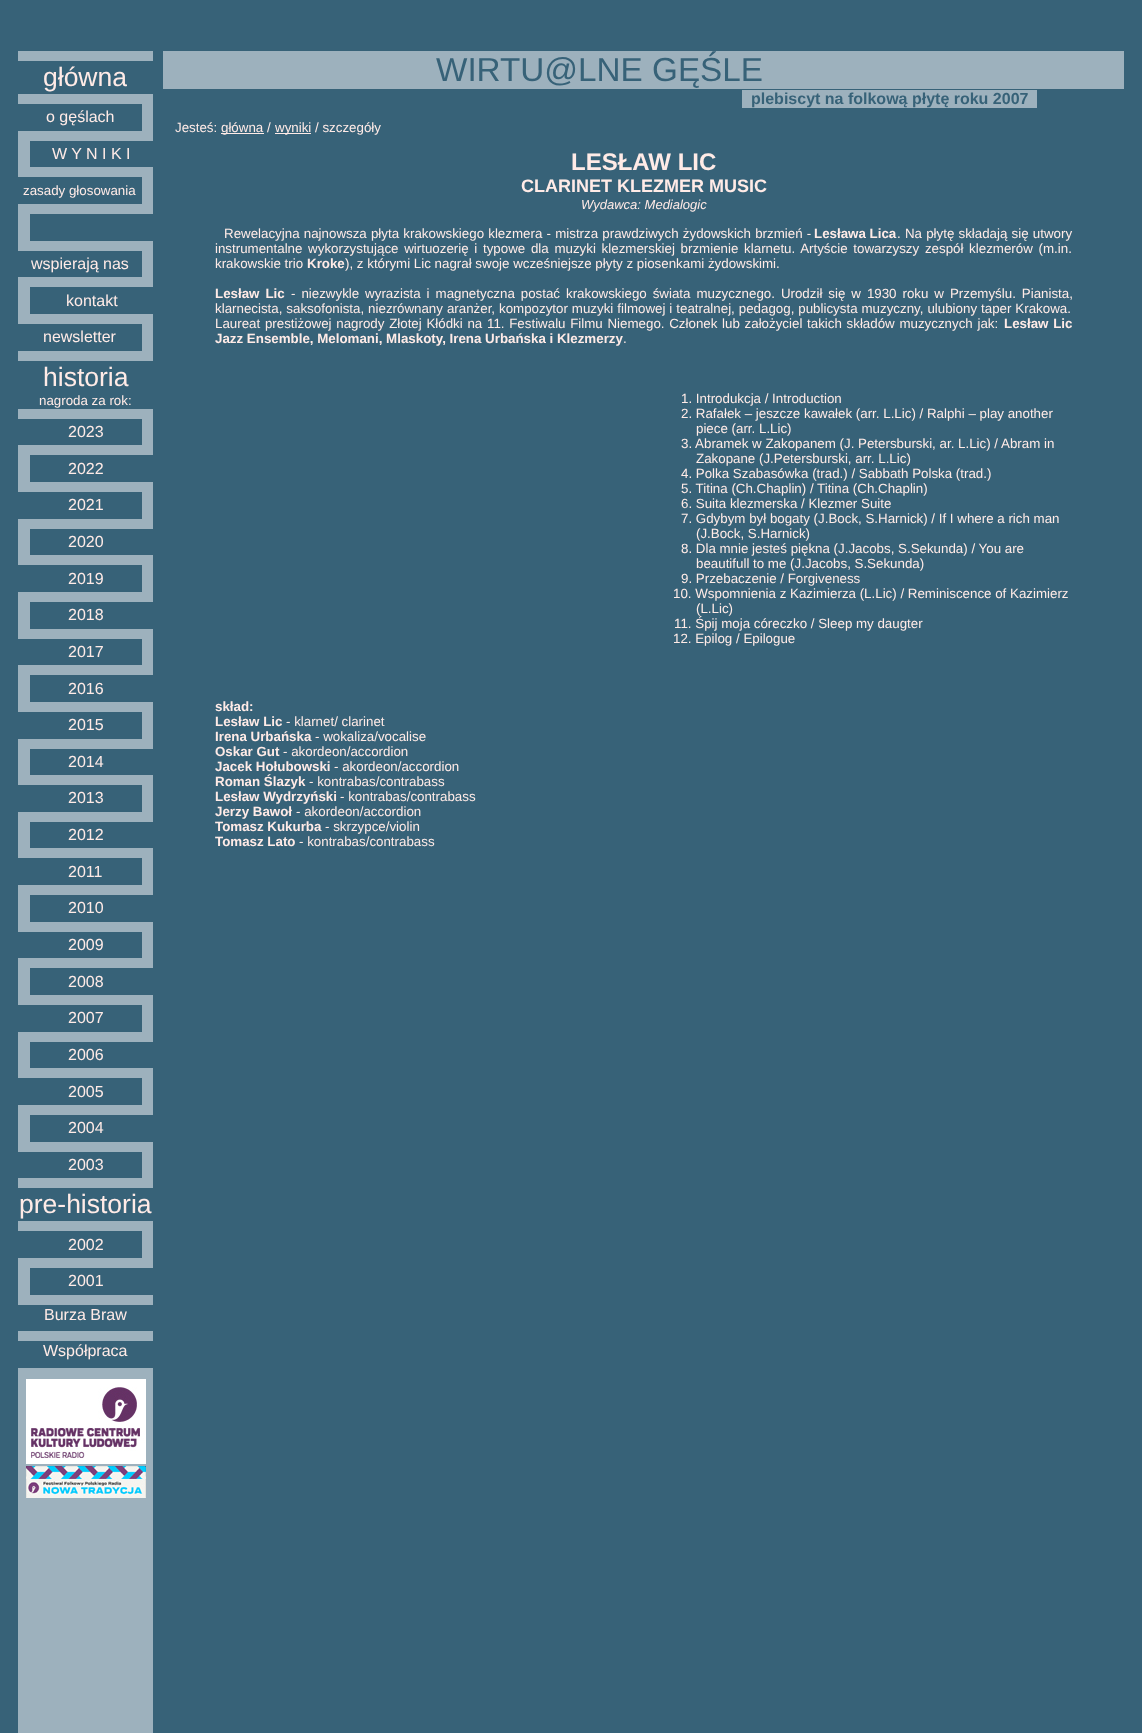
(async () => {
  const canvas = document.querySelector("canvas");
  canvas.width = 1142;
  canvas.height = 1733;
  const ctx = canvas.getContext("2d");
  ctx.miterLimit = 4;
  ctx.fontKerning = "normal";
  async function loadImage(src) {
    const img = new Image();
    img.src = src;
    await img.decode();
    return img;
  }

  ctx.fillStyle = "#376278";
  ctx.fillRect(0, 0, 1142, 1733);
  for (const [x, y, w, h, color] of [
    [18, 51, 135, 1682, "#9db1bd"],
    [18, 61, 135, 33, "#376278"],
    [18, 104, 124, 27, "#376278"],
    [30, 141, 123, 26, "#376278"],
    [18, 177, 124, 27, "#376278"],
    [30, 214, 123, 27, "#376278"],
    [18, 251, 124, 26, "#376278"],
    [30, 287, 123, 27, "#376278"],
    [18, 324, 124, 27, "#376278"],
    [18, 361, 135, 48, "#376278"],
    [18, 419, 124, 26, "#376278"],
    [30, 455, 123, 27, "#376278"],
    [18, 492, 124, 27, "#376278"],
    [30, 529, 123, 26, "#376278"],
    [18, 565, 124, 27, "#376278"],
    [30, 602, 123, 27, "#376278"],
    [18, 639, 124, 26, "#376278"],
    [30, 675, 123, 27, "#376278"],
    [18, 712, 124, 27, "#376278"],
    [30, 749, 123, 26, "#376278"],
    [18, 785, 124, 27, "#376278"],
    [30, 822, 123, 26, "#376278"],
    [18, 858, 124, 27, "#376278"],
    [30, 895, 123, 27, "#376278"],
    [18, 932, 124, 26, "#376278"],
    [30, 968, 123, 27, "#376278"],
    [18, 1005, 124, 27, "#376278"],
    [30, 1042, 123, 26, "#376278"],
    [18, 1078, 124, 27, "#376278"],
    [30, 1115, 123, 27, "#376278"],
    [18, 1152, 124, 26, "#376278"],
    [18, 1188, 135, 33, "#376278"],
    [18, 1231, 124, 27, "#376278"],
    [30, 1268, 123, 27, "#376278"],
    [18, 1305, 135, 26, "#376278"],
    [18, 1341, 135, 27, "#376278"],
  ]) {
    ctx.fillStyle = color;
    ctx.fillRect(x, y, w, h);
  }
  ctx.drawImage(await loadImage("img/1.png"), 26, 1379, 120, 85);
  ctx.drawImage(await loadImage("img/2.png"), 26, 1466, 120, 32);
  for (const [x, y, w, h, color] of [
    [163, 51, 961, 38, "#9db1bd"],
    [742, 90, 295, 18, "#9db1bd"],
    [221, 133, 43, 1, "#ffebe7"],
    [275, 133, 36, 1, "#ffebe7"],
  ]) {
    ctx.fillStyle = color;
    ctx.fillRect(x, y, w, h);
  }
  ctx.font = "26.5px Liberation Sans";
  ctx.fillText("główna", 43, 86);
  ctx.font = "16px Liberation Sans";
  ctx.fillText("o gęślach", 46, 122);
  ctx.fillText("W Y N I K I", 52, 159);
  ctx.font = "13.33px Liberation Sans";
  ctx.fillText("zasady głosowania", 23, 195);
  ctx.font = "16px Liberation Sans";
  for (const [text, x, y] of [
    ["wspierają nas", 31, 269],
    ["kontakt", 66, 306],
    ["newsletter", 43, 342],
  ]) {
    ctx.fillText(text, x, y);
  }
  ctx.font = "26.5px Liberation Sans";
  ctx.fillText("historia", 43, 386);
  ctx.font = "13.33px Liberation Sans";
  ctx.fillText("nagroda za rok:", 39, 405);
  ctx.font = "16px Liberation Sans";
  for (const [text, x, y] of [
    ["2023", 68, 437],
    ["2022", 68, 474],
    ["2021", 68, 510],
    ["2020", 68, 547],
    ["2019", 68, 584],
    ["2018", 68, 620],
    ["2017", 68, 657],
    ["2016", 68, 694],
    ["2015", 68, 730],
    ["2014", 68, 767],
    ["2013", 68, 803],
    ["2012", 68, 840],
    ["2011", 68, 877],
    ["2010", 68, 913],
    ["2009", 68, 950],
    ["2008", 68, 987],
    ["2007", 68, 1023],
    ["2006", 68, 1060],
    ["2005", 68, 1097],
    ["2004", 68, 1133],
    ["2003", 68, 1170],
  ]) {
    ctx.fillText(text, x, y);
  }
  ctx.font = "26.5px Liberation Sans";
  ctx.fillText("pre-historia", 19, 1213);
  ctx.font = "16px Liberation Sans";
  for (const [text, x, y] of [
    ["2002", 68, 1250],
    ["2001", 68, 1286],
    ["Burza Braw", 44, 1320],
    ["Współpraca", 43, 1356],
  ]) {
    ctx.fillText(text, x, y);
  }
  ctx.font = "33.25px Liberation Sans";
  ctx.fillStyle = "#376278";
  ctx.fillText("WIRTU@LNE GĘŚLE", 436, 81);
  ctx.font = "bold 16px Liberation Sans";
  ctx.fillText("plebiscyt na folkową płytę roku 2007", 751, 104);
  ctx.font = "13.33px Liberation Sans";
  ctx.fillStyle = "#ffebe7";
  for (const [text, x, y] of [
    ["Jesteś:", 175, 132],
    ["główna /", 221, 132],
    ["wyniki / szczegóły", 275, 132],
  ]) {
    ctx.fillText(text, x, y);
  }
  ctx.font = "bold 24px Liberation Sans";
  ctx.fillText("LESŁAW LIC", 571, 170);
  ctx.font = "bold 18px Liberation Sans";
  ctx.fillText("CLARINET KLEZMER MUSIC", 521, 192);
  ctx.font = "italic 13px Liberation Sans";
  ctx.fillText("Wydawca: Medialogic", 581, 209);
  ctx.wordSpacing = "0.5px";
  ctx.font = "13.33px Liberation Sans";
  ctx.fillText("Rewelacyjna najnowsza płyta krakowskiego klezmera - mistrza prawdziwych żydowskich brzmień -", 224, 238);
  ctx.wordSpacing = "0px";
  ctx.font = "bold 13.33px Liberation Sans";
  ctx.fillText("Lesława Lica", 814, 238);
  ctx.wordSpacing = "0.5px";
  ctx.font = "13.33px Liberation Sans";
  ctx.fillText(". Na płytę składają się utwory", 897, 238);
  ctx.wordSpacing = "2px";
  ctx.fillText("instrumentalne wykorzystujące wirtuozerię i typowe dla muzyki klezmerskiej brzmienie klarnetu. Artyście towarzyszy zespół klezmerów (m.in.", 215, 253);
  ctx.wordSpacing = "0px";
  ctx.fillText("krakowskie trio", 215, 268);
  ctx.font = "bold 13.33px Liberation Sans";
  ctx.fillText("Kroke", 307, 268);
  ctx.font = "13.33px Liberation Sans";
  ctx.fillText("), z którymi Lic nagrał swoje wcześniejsze płyty z piosenkami żydowskimi.", 345, 268);
  ctx.wordSpacing = "2.25px";
  ctx.font = "bold 13.33px Liberation Sans";
  ctx.fillText("Lesław Lic", 215, 298);
  ctx.font = "13.33px Liberation Sans";
  ctx.fillText("- niezwykle wyrazista i magnetyczna postać krakowskiego świata muzycznego. Urodził się w 1930 roku w Przemyślu. Pianista,", 291, 298);
  ctx.wordSpacing = "0.25px";
  ctx.fillText("klarnecista, saksofonista, niezrównany aranżer, kompozytor muzyki filmowej i teatralnej, pedagog, publicysta muzyczny, ulubiony taper Krakowa.", 215, 313);
  ctx.wordSpacing = "1px";
  ctx.fillText("Laureat prestiżowej nagrody Złotej Kłódki na 11. Festiwalu Filmu Niemego. Członek lub założyciel takich składów muzycznych jak:", 215, 328);
  ctx.font = "bold 13.33px Liberation Sans";
  ctx.fillText("Lesław Lic", 1004, 328);
  ctx.wordSpacing = "0px";
  ctx.fillText("Jazz Ensemble, Melomani, Mlaskoty, Irena Urbańska i Klezmerzy", 215, 343);
  ctx.font = "13.33px Liberation Sans";
  for (const [text, x, y] of [
    [".", 623, 343],
    ["1. Introdukcja / Introduction", 681, 403],
    ["2. Rafałek – jeszcze kawałek (arr. L.Lic) / Ralphi – play another", 681, 418],
    ["piece (arr. L.Lic)", 696, 433],
    ["3. Abramek w Zakopanem (J. Petersburski, ar. L.Lic) / Abram in", 681, 448],
    ["Zakopane (J.Petersburski, arr. L.Lic)", 696, 463],
    ["4. Polka Szabasówka (trad.) / Sabbath Polska (trad.)", 681, 478],
    ["5. Titina (Ch.Chaplin) / Titina (Ch.Chaplin)", 681, 493],
    ["6. Suita klezmerska / Klezmer Suite", 681, 508],
    ["7. Gdybym był bogaty (J.Bock, S.Harnick) / If I where a rich man", 681, 523],
    ["(J.Bock, S.Harnick)", 696, 538],
    ["8. Dla mnie jesteś piękna (J.Jacobs, S.Sekunda) / You are", 681, 553],
    ["beautifull to me (J.Jacobs, S.Sekunda)", 696, 568],
    ["9. Przebaczenie / Forgiveness", 681, 583],
    ["10. Wspomnienia z Kazimierza (L.Lic) / Reminiscence of Kazimierz", 673, 598],
    ["(L.Lic)", 696, 613],
    ["11. Śpij moja córeczko / Sleep my daugter", 674, 628],
    ["12. Epilog / Epilogue", 673, 643],
  ]) {
    ctx.fillText(text, x, y);
  }
  ctx.font = "bold 13.33px Liberation Sans";
  ctx.fillText("skład:", 215, 711);
  ctx.fillText("Lesław Lic", 215, 726);
  ctx.font = "13.33px Liberation Sans";
  ctx.fillText("- klarnet/ clarinet", 286, 726);
  ctx.font = "bold 13.33px Liberation Sans";
  ctx.fillText("Irena Urbańska", 215, 741);
  ctx.font = "13.33px Liberation Sans";
  ctx.fillText("- wokaliza/vocalise", 315, 741);
  ctx.font = "bold 13.33px Liberation Sans";
  ctx.fillText("Oskar Gut", 215, 756);
  ctx.font = "13.33px Liberation Sans";
  ctx.fillText("- akordeon/accordion", 283, 756);
  ctx.font = "bold 13.33px Liberation Sans";
  ctx.fillText("Jacek Hołubowski", 215, 771);
  ctx.font = "13.33px Liberation Sans";
  ctx.fillText("- akordeon/accordion", 334, 771);
  ctx.font = "bold 13.33px Liberation Sans";
  ctx.fillText("Roman Ślazyk", 215, 786);
  ctx.font = "13.33px Liberation Sans";
  ctx.fillText("- kontrabas/contrabass", 309, 786);
  ctx.font = "bold 13.33px Liberation Sans";
  ctx.fillText("Lesław Wydrzyński", 215, 801);
  ctx.font = "13.33px Liberation Sans";
  ctx.fillText("- kontrabas/contrabass", 340, 801);
  ctx.font = "bold 13.33px Liberation Sans";
  ctx.fillText("Jerzy Bawoł", 215, 816);
  ctx.font = "13.33px Liberation Sans";
  ctx.fillText("- akordeon/accordion", 296, 816);
  ctx.font = "bold 13.33px Liberation Sans";
  ctx.fillText("Tomasz Kukurba", 215, 831);
  ctx.font = "13.33px Liberation Sans";
  ctx.fillText("- skrzypce/violin", 325, 831);
  ctx.font = "bold 13.33px Liberation Sans";
  ctx.fillText("Tomasz Lato", 215, 846);
  ctx.font = "13.33px Liberation Sans";
  ctx.fillText("- kontrabas/contrabass", 299, 846);
})();
